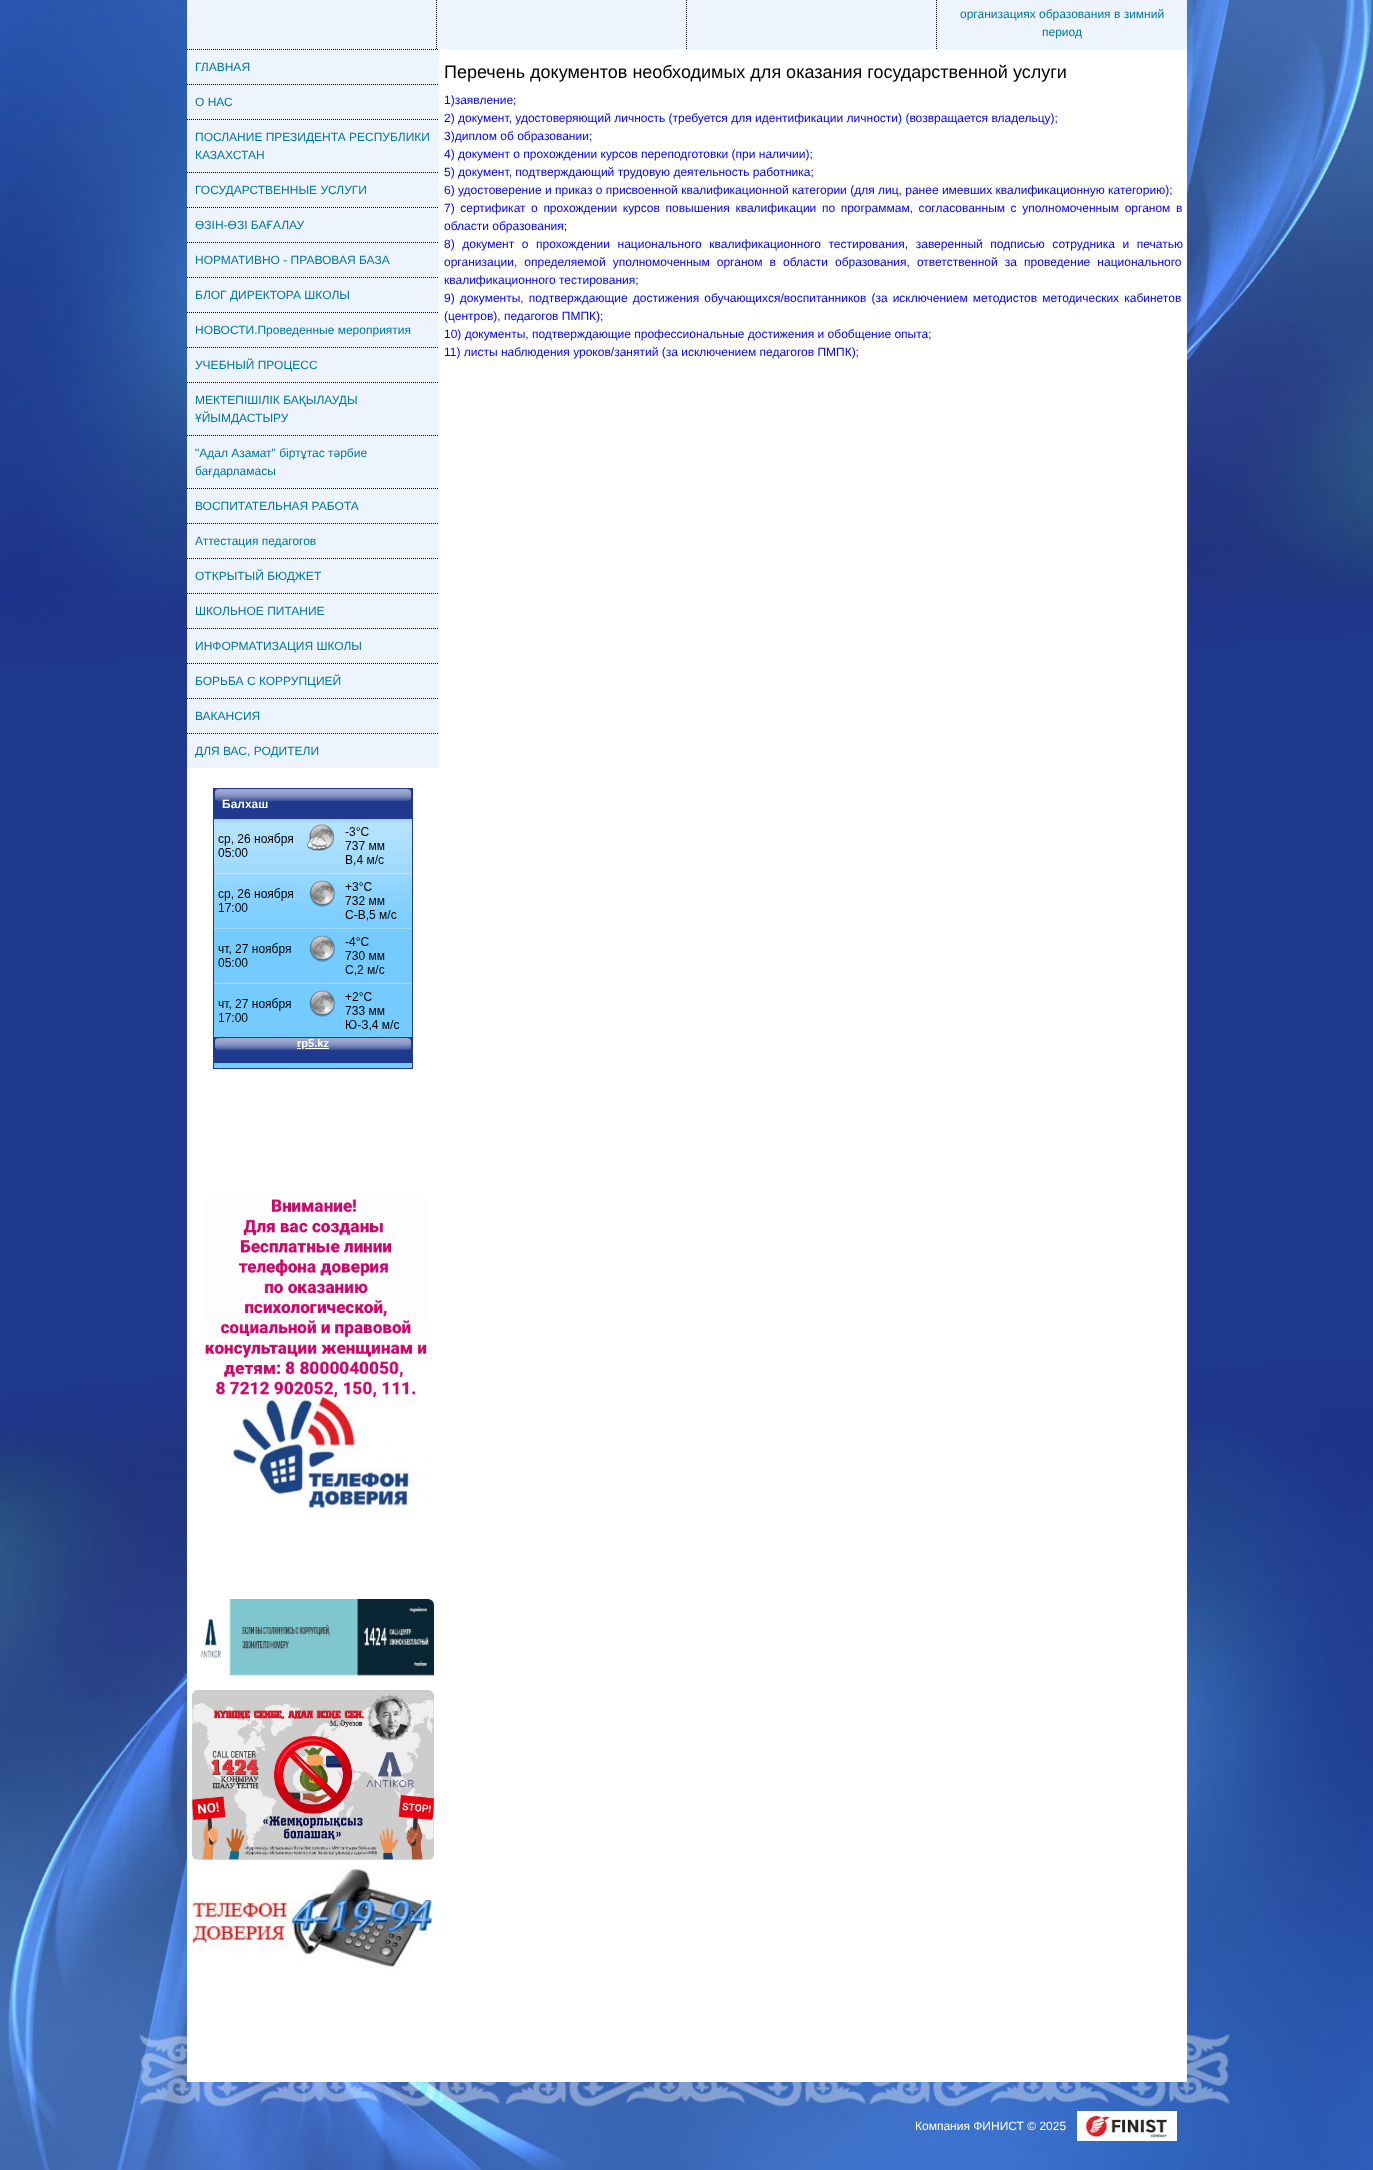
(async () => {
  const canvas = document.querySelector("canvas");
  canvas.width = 1373;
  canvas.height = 2170;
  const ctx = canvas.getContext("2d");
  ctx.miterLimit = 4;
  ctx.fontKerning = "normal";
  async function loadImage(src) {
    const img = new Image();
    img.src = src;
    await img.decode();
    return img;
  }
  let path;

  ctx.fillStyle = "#1f398e";
  ctx.fillRect(0, 0, 1373, 2170);
  ctx.drawImage(await loadImage("img/1.png"), 0, 0, 1373, 670);
  ctx.drawImage(await loadImage("img/2.png"), 0, 1356, 1373, 814);
  ctx.fillStyle = "#ffffff";
  ctx.fillRect(187, 49, 1000, 2033);
  ctx.fillStyle = "#edf4fe";
  ctx.fillRect(187, 0, 1000, 49);
  path = new Path2D("M436.5-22V49");
  ctx.strokeStyle = "#000000";
  ctx.setLineDash([1, 1]);
  ctx.stroke(path);
  path = new Path2D("M686.5-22V49");
  ctx.stroke(path);
  path = new Path2D("M936.5-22V49");
  ctx.stroke(path);
  path = new Path2D("M187 49.5H439");
  ctx.stroke(path);
  ctx.fillRect(187, 50, 252, 718);
  path = new Path2D("M187 84.5H439");
  ctx.stroke(path);
  path = new Path2D("M187 119.5H439");
  ctx.stroke(path);
  path = new Path2D("M187 172.5H439");
  ctx.stroke(path);
  path = new Path2D("M187 207.5H439");
  ctx.stroke(path);
  path = new Path2D("M187 242.5H439");
  ctx.stroke(path);
  path = new Path2D("M187 277.5H439");
  ctx.stroke(path);
  path = new Path2D("M187 312.5H439");
  ctx.stroke(path);
  path = new Path2D("M187 347.5H439");
  ctx.stroke(path);
  path = new Path2D("M187 382.5H439");
  ctx.stroke(path);
  path = new Path2D("M187 435.5H439");
  ctx.stroke(path);
  path = new Path2D("M187 488.5H439");
  ctx.stroke(path);
  path = new Path2D("M187 523.5H439");
  ctx.stroke(path);
  path = new Path2D("M187 558.5H439");
  ctx.stroke(path);
  path = new Path2D("M187 593.5H439");
  ctx.stroke(path);
  path = new Path2D("M187 628.5H439");
  ctx.stroke(path);
  path = new Path2D("M187 663.5H439");
  ctx.stroke(path);
  path = new Path2D("M187 698.5H439");
  ctx.stroke(path);
  path = new Path2D("M187 733.5H439");
  ctx.stroke(path);
  ctx.fillStyle = "#74cbff";
  ctx.fillRect(214, 1063, 198, 5);
  ctx.strokeStyle = "#1f398e";
  ctx.setLineDash([]);
  ctx.strokeRect(213.5, 788.5, 199, 280);
  ctx.fillStyle = "#1f398e";
  ctx.fillRect(214, 789, 198, 30);
  ctx.drawImage(await loadImage("img/3.png"), 215, 789, 7, 12);
  ctx.drawImage(await loadImage("img/4.png"), 404, 789, 7, 12);
  ctx.drawImage(await loadImage("img/5.png"), 222, 789, 182, 12);
  ctx.drawImage(await loadImage("img/6.png"), 214, 819, 198, 244);
  ctx.drawImage(await loadImage("img/7.png"), 205, 1199, 222, 310);
  ctx.drawImage(await loadImage("img/8.png"), 200, 1599, 234, 77);
  ctx.drawImage(await loadImage("img/9.png"), 192, 1690, 242, 170);
  ctx.drawImage(await loadImage("img/10.png"), 192, 1866, 242, 103);
  ctx.drawImage(await loadImage("img/11.png"), 1077, 2111, 100, 30);
  ctx.font = "12px Liberation Sans";
  ctx.fillStyle = "#0076a3";
  for (const [text, x, y] of [
    ["организациях образования в зимний", 960, 18],
    ["период", 1042, 36],
    ["ГЛАВНАЯ", 195, 71],
    ["О НАС", 195, 106],
    ["ПОСЛАНИЕ ПРЕЗИДЕНТА РЕСПУБЛИКИ", 195, 141],
    ["КАЗАХСТАН", 195, 159],
    ["ГОСУДАРСТВЕННЫЕ УСЛУГИ", 195, 194],
    ["ӨЗІН-ӨЗІ БАҒАЛАУ", 195, 229],
    ["НОРМАТИВНО - ПРАВОВАЯ БАЗА", 195, 264],
    ["БЛОГ ДИРЕКТОРА ШКОЛЫ", 195, 299],
    ["НОВОСТИ.Проведенные мероприятия", 195, 334],
    ["УЧЕБНЫЙ ПРОЦЕСС", 195, 369],
    ["МЕКТЕПІШІЛІК БАҚЫЛАУДЫ", 195, 404],
    ["ҰЙЫМДАСТЫРУ", 195, 422],
    ["\"Адал Азамат\" біртұтас тәрбие", 195, 457],
    ["бағдарламасы", 195, 475],
    ["ВОСПИТАТЕЛЬНАЯ РАБОТА", 195, 510],
    ["Аттестация педагогов", 195, 545],
    ["ОТКРЫТЫЙ БЮДЖЕТ", 195, 580],
    ["ШКОЛЬНОЕ ПИТАНИЕ", 195, 615],
    ["ИНФОРМАТИЗАЦИЯ ШКОЛЫ", 195, 650],
    ["БОРЬБА С КОРРУПЦИЕЙ", 195, 685],
    ["ВАКАНСИЯ", 195, 720],
    ["ДЛЯ ВАС, РОДИТЕЛИ", 195, 755],
  ]) {
    ctx.fillText(text, x, y);
  }
  ctx.font = "bold 12px Liberation Sans";
  ctx.fillStyle = "#ffffff";
  ctx.fillText("Балхаш", 222, 808);
  ctx.font = "18px Liberation Sans";
  ctx.fillStyle = "#000000";
  ctx.fillText("Перечень документов необходимых для оказания государственной услуги", 444, 78);
  ctx.font = "12px Liberation Sans";
  ctx.fillStyle = "#0000ff";
  for (const [text, x, y] of [
    ["1)заявление;", 444, 104],
    ["2) документ, удостоверяющий личность (требуется для идентификации личности) (возвращается владельцу);", 444, 122],
    ["3)диплом об образовании;", 444, 140],
    ["4) документ о прохождении курсов переподготовки (при наличии);", 444, 158],
    ["5) документ, подтверждающий трудовую деятельность работника;", 444, 176],
    ["6) удостоверение и приказ о присвоенной квалификационной категории (для лиц, ранее имевших квалификационную категорию);", 444, 194],
  ]) {
    ctx.fillText(text, x, y);
  }
  ctx.wordSpacing = "2.25px";
  ctx.fillText("7) сертификат о прохождении курсов повышения квалификации по программам, согласованным с уполномоченным органом в", 444, 212);
  ctx.wordSpacing = "0px";
  ctx.fillText("области образования;", 444, 230);
  ctx.wordSpacing = "4.25px";
  ctx.fillText("8) документ о прохождении национального квалификационного тестирования, заверенный подписью сотрудника и печатью", 444, 248);
  ctx.wordSpacing = "3.75px";
  ctx.fillText("организации, определяемой уполномоченным органом в области образования, ответственной за проведение национального", 444, 266);
  ctx.wordSpacing = "0px";
  ctx.fillText("квалификационного тестирования;", 444, 284);
  ctx.wordSpacing = "1.75px";
  ctx.fillText("9) документы, подтверждающие достижения обучающихся/воспитанников (за исключением методистов методических кабинетов", 444, 302);
  ctx.wordSpacing = "0px";
  for (const [text, x, y] of [
    ["(центров), педагогов ПМПК);", 444, 320],
    ["10) документы, подтверждающие профессиональные достижения и обобщение опыта;", 444, 338],
    ["11) листы наблюдения уроков/занятий (за исключением педагогов ПМПК);", 444, 356],
  ]) {
    ctx.fillText(text, x, y);
  }
  ctx.fillStyle = "#ffffff";
  ctx.fillText("Компания ФИНИСТ © 2025", 915, 2130);
})();
